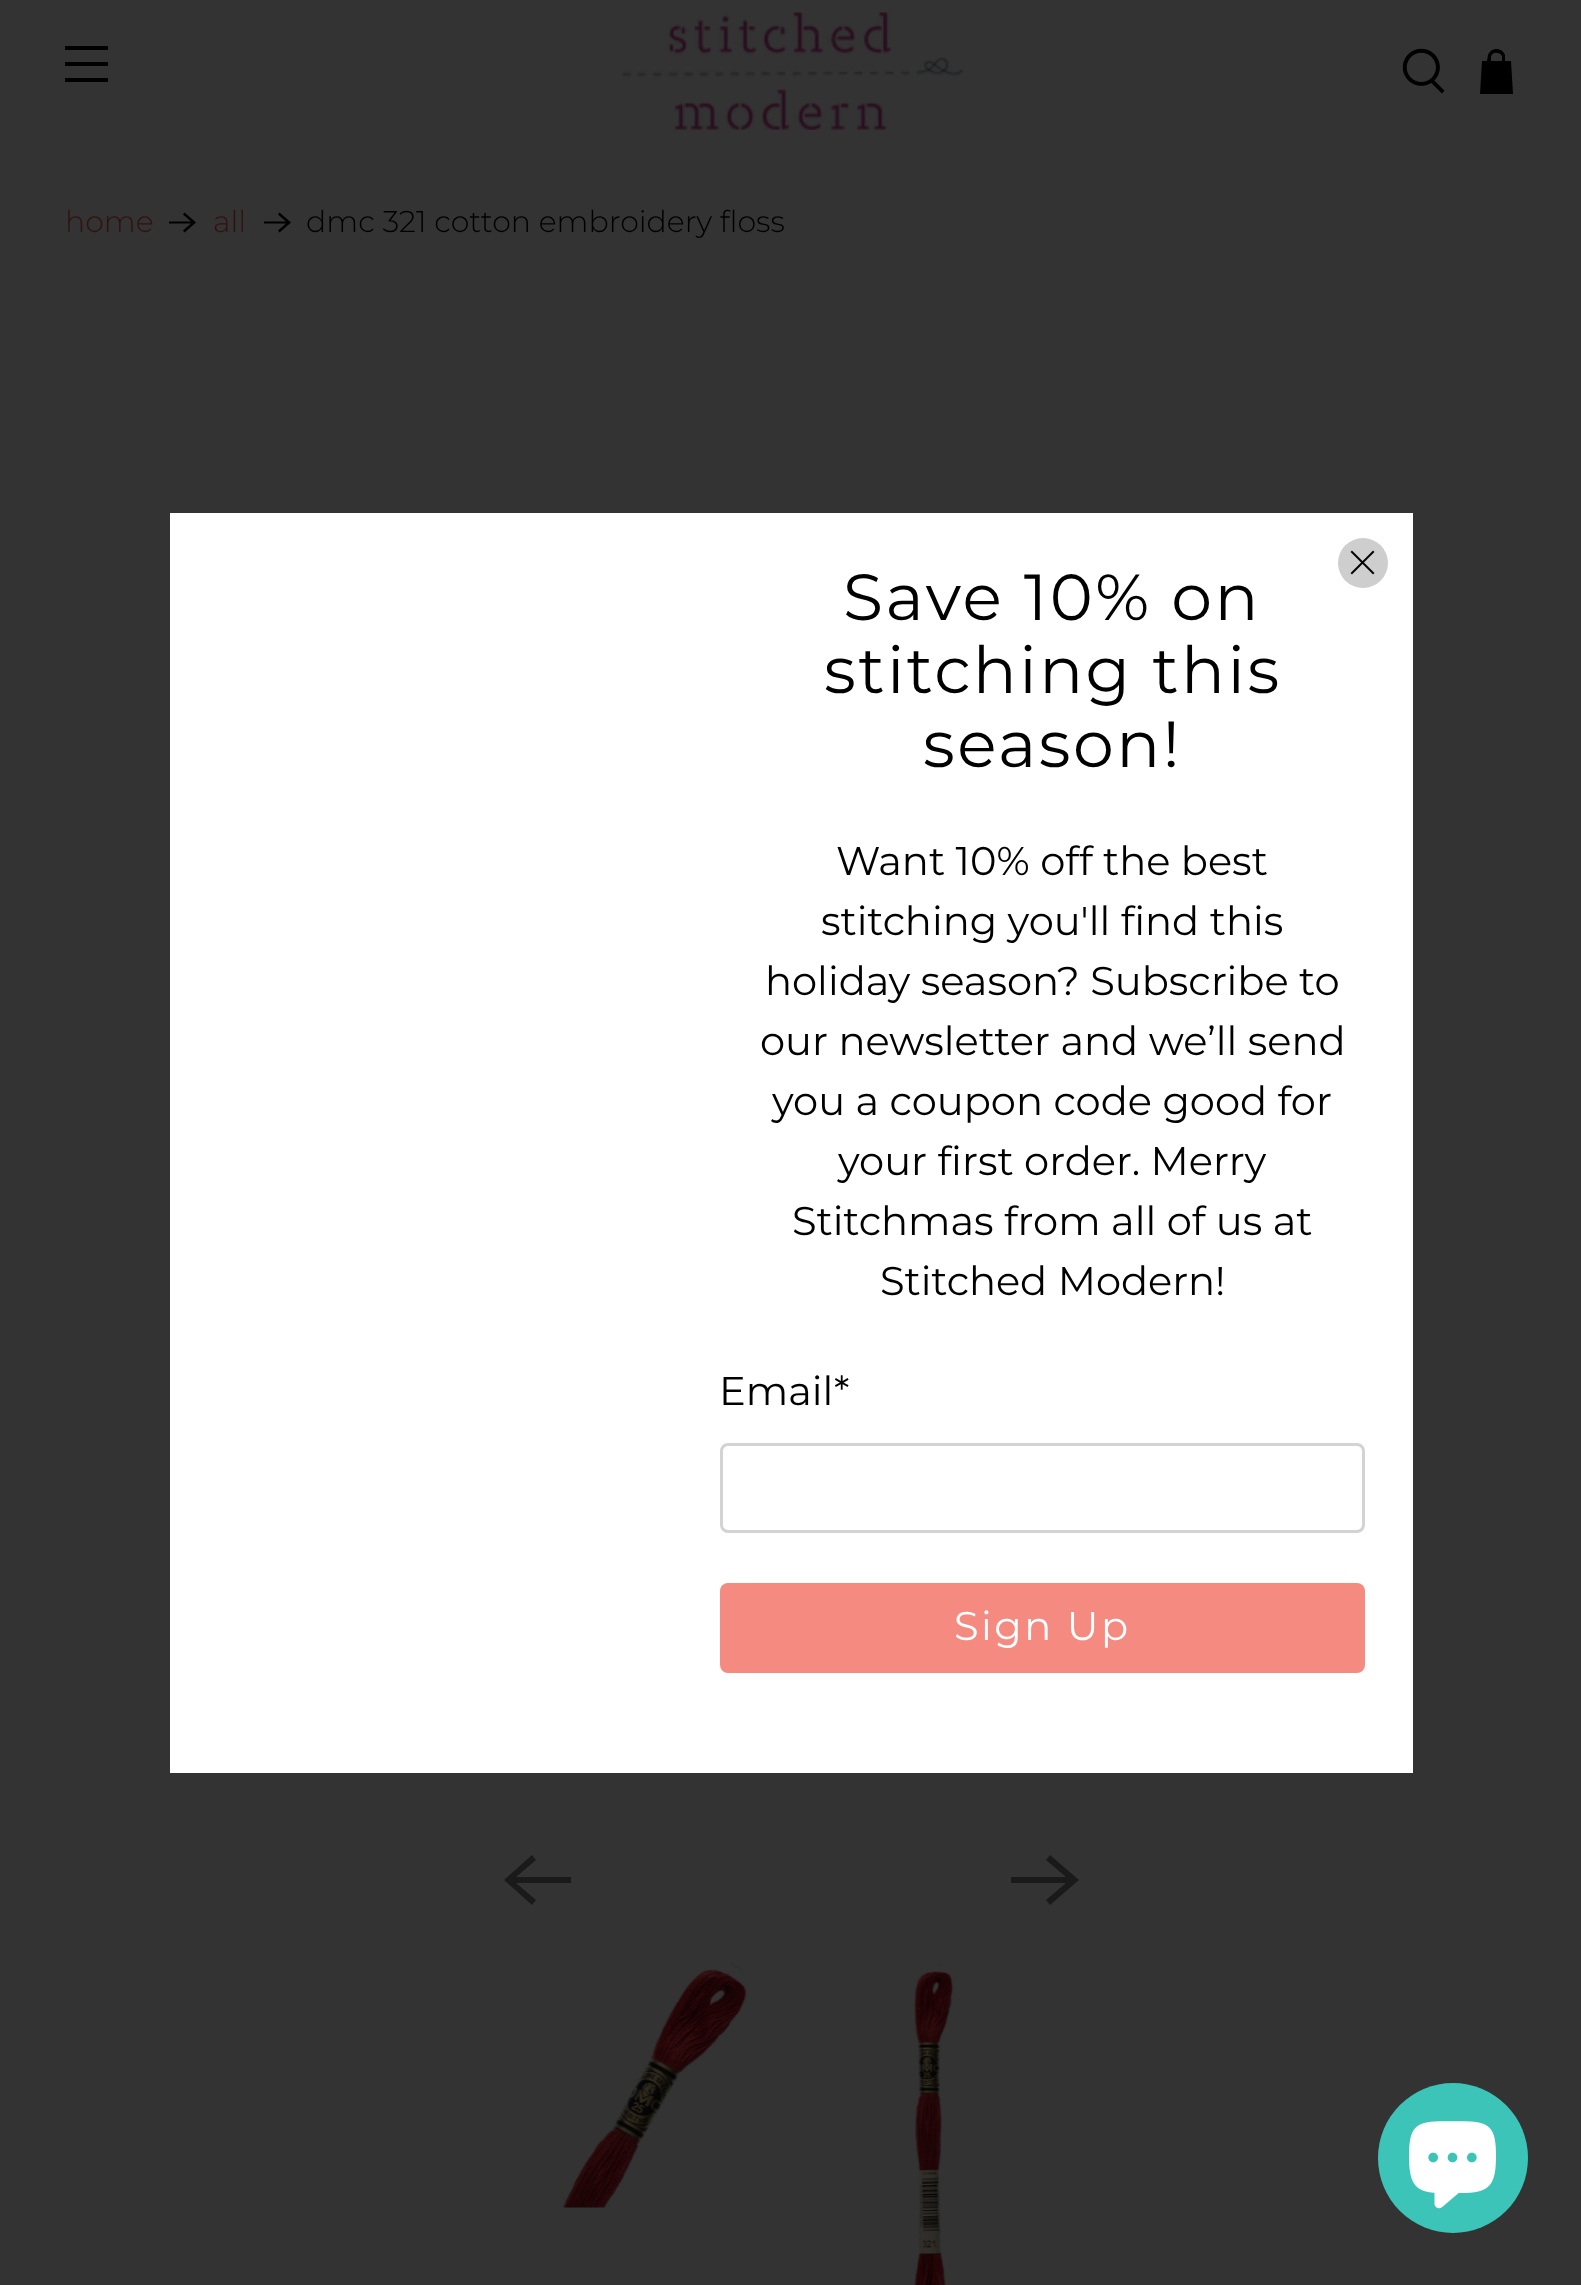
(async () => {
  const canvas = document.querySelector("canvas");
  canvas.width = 1581;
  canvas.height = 2285;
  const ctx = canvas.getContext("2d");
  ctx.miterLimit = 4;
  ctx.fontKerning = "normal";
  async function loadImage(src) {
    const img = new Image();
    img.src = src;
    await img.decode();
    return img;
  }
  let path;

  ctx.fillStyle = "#333333";
  ctx.fillRect(0, 0, 1581, 2285);
  for (const [x, y, w, h, color] of [
    [65, 46, 43, 4, "#000000"],
    [65, 62, 43, 4, "#000000"],
    [65, 78, 43, 4, "#000000"],
  ]) {
    ctx.fillStyle = color;
    ctx.fillRect(x, y, w, h);
  }
  ctx.drawImage(await loadImage("img/1.png"), 621, 12, 343, 118);
  ctx.drawImage(await loadImage("img/2.png"), 1402, 48, 43, 46);
  path = new Path2D("M1511 61H1505V55C1502 47 1491 47 1488 55L1487 61H1482L1480 94H1513ZM1491 58C1491 52 1499 51 1502 56V61H1491Z");
  ctx.fill(path);
  path = new Path2D("M184.5 212.5L183 214.5L191 221.5H169V223.5H191L183 230.5L184.5 232.5L196 222.5Z");
  ctx.fill(path);
  path = new Path2D("M279.5 212.5L278 214.5L286 221.5H264V223.5H286L278 230.5L279.5 232.5L291 222.5Z");
  ctx.fill(path);
  ctx.fillStyle = "#1a1a1a";
  path = new Path2D("M571 1877H516L536 1860L532 1855L504 1880L532 1905L536 1900L516 1883H571Z");
  ctx.fill(path);
  path = new Path2D("M1011 1883H1066L1046 1900L1050 1905L1079 1880L1050 1855L1046 1860L1066 1877H1011Z");
  ctx.fill(path);
  ctx.drawImage(await loadImage("img/3.png"), 562, 1963, 186, 245);
  ctx.drawImage(await loadImage("img/4.png"), 912, 1964, 46, 321);
  ctx.fillStyle = "#ffffff";
  ctx.fillRect(170, 513, 1243, 1260);
  ctx.fillStyle = "#cecece";
  ctx.beginPath();
  ctx.arc(1363, 563, 25, 0, Math.PI * 2);
  ctx.fill();
  ctx.drawImage(await loadImage("img/5.png"), 1350, 550, 25, 25);
  ctx.beginPath();
  ctx.roundRect(721.5, 1444.5, 642, 87, 6.5);
  ctx.strokeStyle = "#d3d3d3";
  ctx.lineWidth = 3;
  ctx.stroke();
  ctx.fillStyle = "#f58a80";
  ctx.beginPath();
  ctx.roundRect(720, 1583, 645, 90, 8);
  ctx.fill();
  ctx.fillStyle = "#3bc4b7";
  ctx.beginPath();
  ctx.arc(1453, 2158, 75, 0, Math.PI * 2);
  ctx.fill();
  ctx.drawImage(await loadImage("img/6.png"), 1409, 2121, 87, 88);
  ctx.font = "300 30px Montserrat";
  ctx.fillStyle = "#301310";
  ctx.fillText("home", 65, 232);
  ctx.fillText("all", 213, 232);
  ctx.fillStyle = "#000000";
  ctx.fillText("dmc 321 cotton embroidery floss", 306, 232);
  ctx.letterSpacing = "2.5px";
  ctx.font = "65px Montserrat";
  for (const [text, x, y] of [
    ["Save 10% on", 843, 620],
    ["stitching this", 824, 693],
    ["season!", 923, 767],
  ]) {
    ctx.fillText(text, x, y);
  }
  ctx.letterSpacing = "0px";
  ctx.font = "40px Montserrat";
  for (const [text, x, y] of [
    ["Want 10% off the best", 836, 875],
    ["stitching you'll find this", 821, 935],
    ["holiday season? Subscribe to", 765, 995],
    ["our newsletter and we’ll send", 760, 1055],
    ["you a coupon code good for", 772, 1115],
    ["your first order. Merry", 838, 1175],
    ["Stitchmas from all of us at", 792, 1235],
    ["Stitched Modern!", 880, 1295],
    ["Email", 719, 1405],
    ["*", 834, 1405],
  ]) {
    ctx.fillText(text, x, y);
  }
  ctx.letterSpacing = "2.5px";
  ctx.fillStyle = "#ffffff";
  ctx.fillText("Sign Up", 954, 1640);
})();
